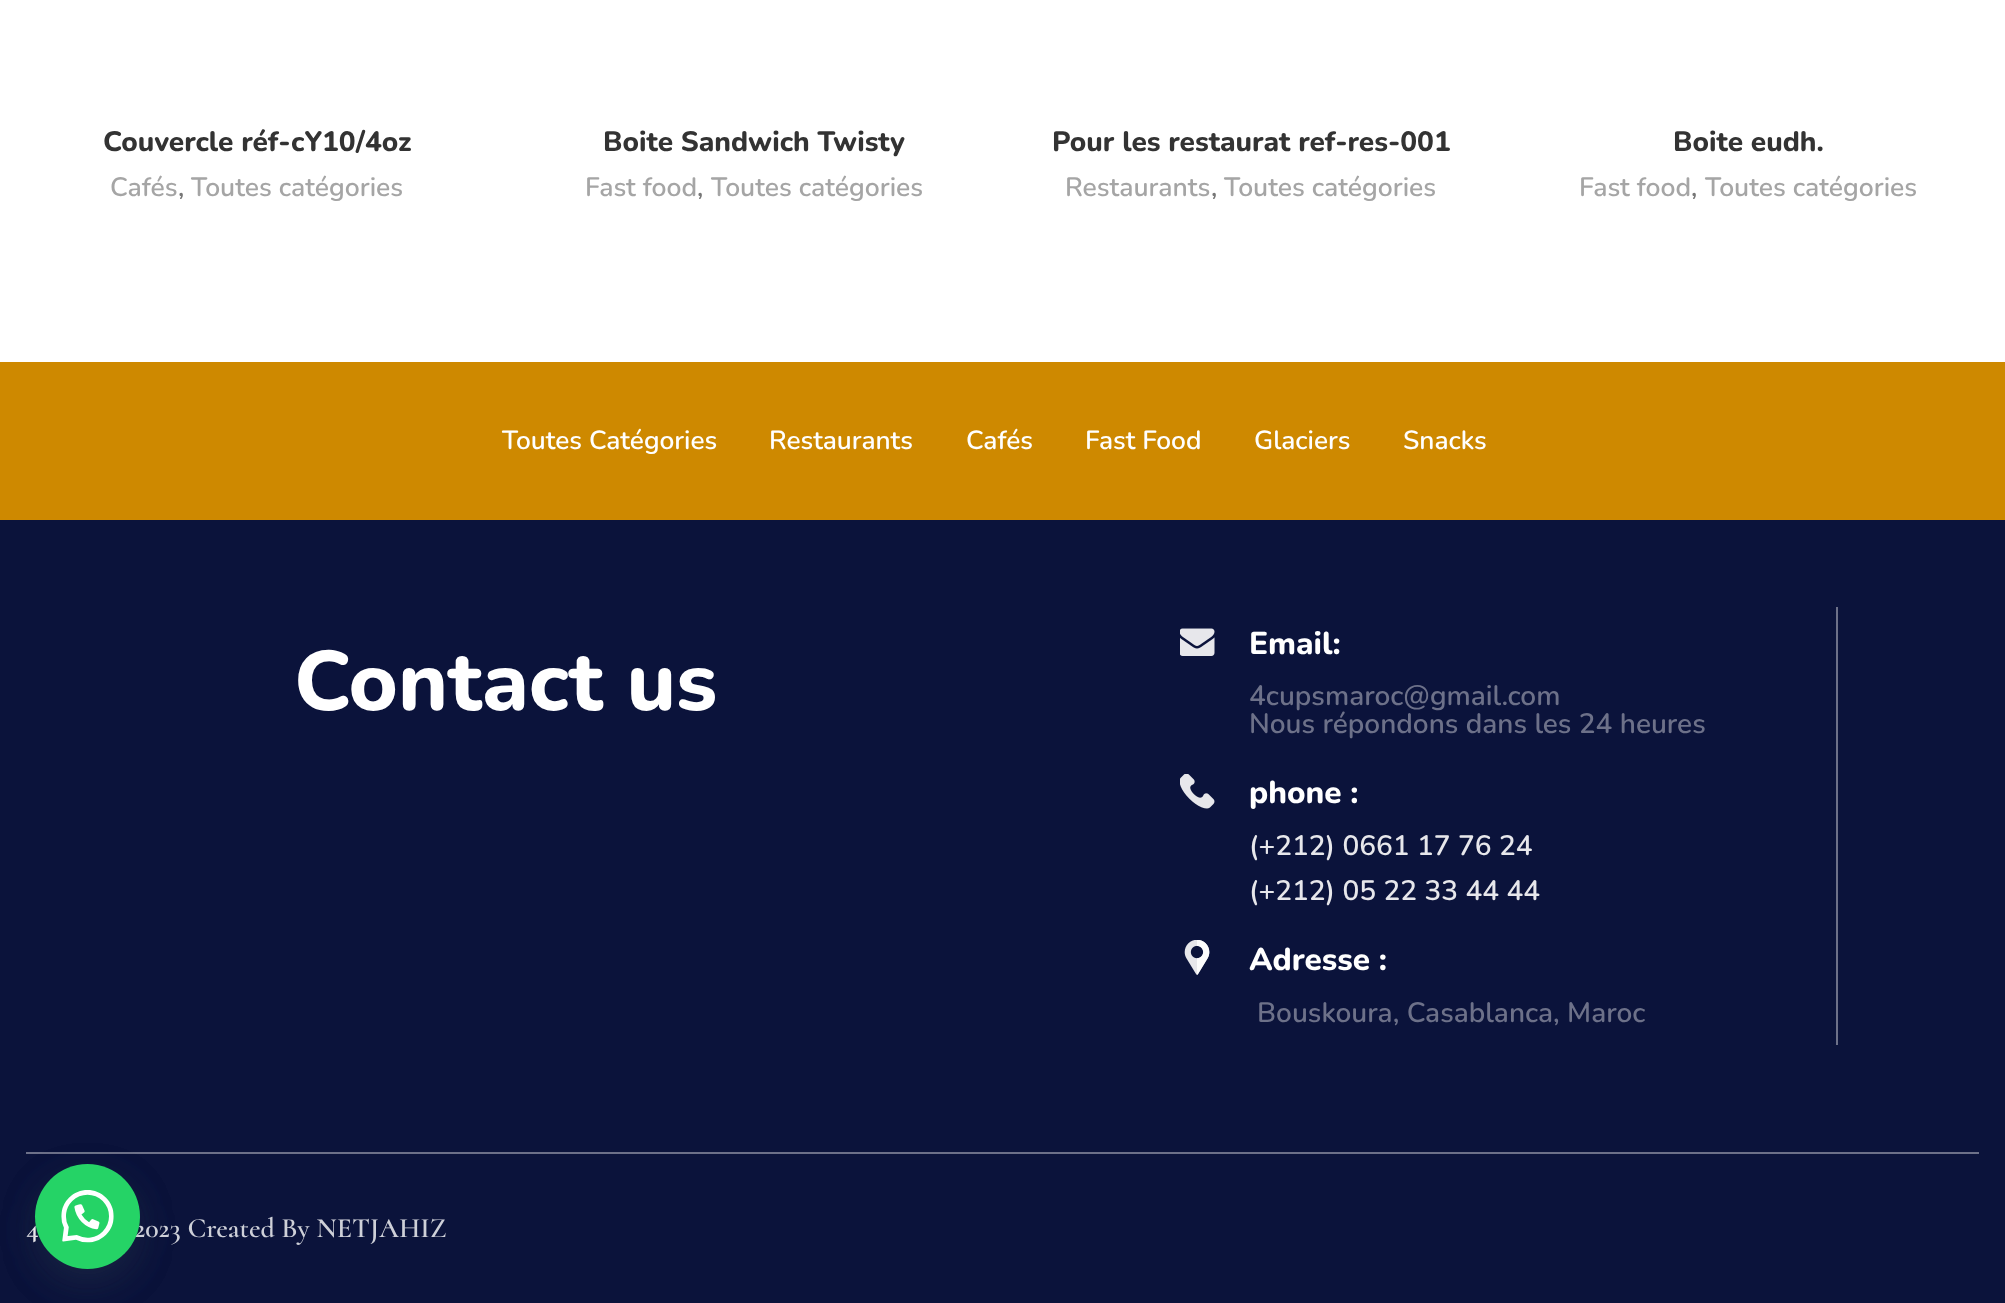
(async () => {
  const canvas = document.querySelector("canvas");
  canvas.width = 2005;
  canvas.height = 1303;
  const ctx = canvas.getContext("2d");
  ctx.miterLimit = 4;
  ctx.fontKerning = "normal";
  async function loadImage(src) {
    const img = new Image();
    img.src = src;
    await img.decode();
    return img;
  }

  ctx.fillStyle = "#ffffff";
  ctx.fillRect(0, 0, 2005, 1303);
  for (const [x, y, w, h, color] of [
    [0, 362, 2005, 158, "#ce8900"],
    [0, 520, 2005, 783, "#0b133b"],
    [1836, 607, 2, 438, "#6d7189"],
  ]) {
    ctx.fillStyle = color;
    ctx.fillRect(x, y, w, h);
  }
  ctx.drawImage(await loadImage("img/1.png"), 1180, 628, 35, 28);
  ctx.drawImage(await loadImage("img/2.png"), 1180, 774, 35, 35);
  ctx.drawImage(await loadImage("img/3.png"), 1184, 940, 26, 35);
  ctx.fillRect(26, 1152, 1953, 2);
  ctx.fillStyle = "rgba(45, 62, 79, 0.3)";
  ctx.filter = "blur(22px)";
  ctx.beginPath();
  ctx.roundRect(44, 1187, 87, 87, 43.5);
  ctx.fill();
  ctx.filter = "none";
  ctx.filter = "blur(22px)";
  ctx.beginPath();
  ctx.roundRect(44, 1187, 87, 87, 43.5);
  ctx.fill();
  ctx.filter = "none";
  ctx.font = "800 28px Nunito";
  ctx.fillStyle = "#333333";
  ctx.fillText("Couvercle réf-cY10/4oz", 103, 151);
  ctx.font = "600 26.5px Nunito";
  ctx.fillStyle = "#a5a5a5";
  ctx.fillText("Cafés", 110, 196);
  ctx.fillStyle = "#777777";
  ctx.fillText(",", 178, 196);
  ctx.fillStyle = "#a5a5a5";
  ctx.fillText("Toutes catégories", 191, 196);
  ctx.font = "800 28px Nunito";
  ctx.fillStyle = "#333333";
  ctx.fillText("Boite Sandwich Twisty", 603, 151);
  ctx.font = "600 26.5px Nunito";
  ctx.fillStyle = "#a5a5a5";
  ctx.fillText("Fast food", 585, 196);
  ctx.fillStyle = "#777777";
  ctx.fillText(",", 697, 196);
  ctx.fillStyle = "#a5a5a5";
  ctx.fillText("Toutes catégories", 711, 196);
  ctx.font = "800 28px Nunito";
  ctx.fillStyle = "#333333";
  ctx.fillText("Pour les restaurat ref-res-001", 1052, 151);
  ctx.font = "600 26.5px Nunito";
  ctx.fillStyle = "#a5a5a5";
  ctx.fillText("Restaurants", 1065, 196);
  ctx.fillStyle = "#777777";
  ctx.fillText(",", 1211, 196);
  ctx.fillStyle = "#a5a5a5";
  ctx.fillText("Toutes catégories", 1224, 196);
  ctx.font = "800 28px Nunito";
  ctx.fillStyle = "#333333";
  ctx.fillText("Boite eudh.", 1673, 151);
  ctx.font = "600 26.5px Nunito";
  ctx.fillStyle = "#a5a5a5";
  ctx.fillText("Fast food", 1579, 196);
  ctx.fillStyle = "#777777";
  ctx.fillText(",", 1691, 196);
  ctx.fillStyle = "#a5a5a5";
  ctx.fillText("Toutes catégories", 1705, 196);
  ctx.font = "600 26.25px Nunito";
  ctx.fillStyle = "#ffffff";
  for (const [text, x, y] of [
    ["Toutes Catégories", 502, 449],
    ["Restaurants", 769, 449],
    ["Cafés", 966, 449],
    ["Fast Food", 1085, 449],
    ["Glaciers", 1254, 449],
    ["Snacks", 1403, 449],
  ]) {
    ctx.fillText(text, x, y);
  }
  ctx.font = "800 84px Nunito";
  ctx.fillText("Contact us", 294, 710);
  ctx.font = "800 31.5px Nunito";
  ctx.fillText("Email:", 1249, 654);
  ctx.font = "600 28px Nunito";
  ctx.fillStyle = "#6d7189";
  ctx.fillText("4cupsmaroc@gmail.com", 1249, 705);
  ctx.fillText("Nous répondons dans les 24 heures", 1249, 733);
  ctx.font = "800 31.5px Nunito";
  ctx.fillStyle = "#ffffff";
  ctx.fillText("phone :", 1249, 803);
  ctx.font = "600 28px Nunito";
  ctx.fillStyle = "#e7e7eb";
  ctx.fillText("(+212) 0661 17 76 24", 1249, 855);
  ctx.fillText("(+212) 05 22 33 44 44", 1249, 900);
  ctx.font = "800 31.5px Nunito";
  ctx.fillStyle = "#ffffff";
  ctx.fillText("Adresse :", 1249, 970);
  ctx.font = "600 28px Nunito";
  ctx.fillStyle = "#6d7189";
  ctx.fillText("Bouskoura, Casablanca, Maroc", 1257, 1022);
  ctx.font = "600 28px Cormorant";
  ctx.fillStyle = "#e7e7eb";
  ctx.fillText("4", 26, 1237);
  ctx.fillStyle = "#ced0d8";
  ctx.fillText("2023 Created By NETJAHIZ", 134, 1237);
  ctx.fillStyle = "#25d366";
  ctx.beginPath();
  ctx.arc(87.5, 1216.5, 52.5, 0, Math.PI * 2);
  ctx.fill();
  ctx.drawImage(await loadImage("img/4.png"), 61, 1190, 53, 53);
})();
